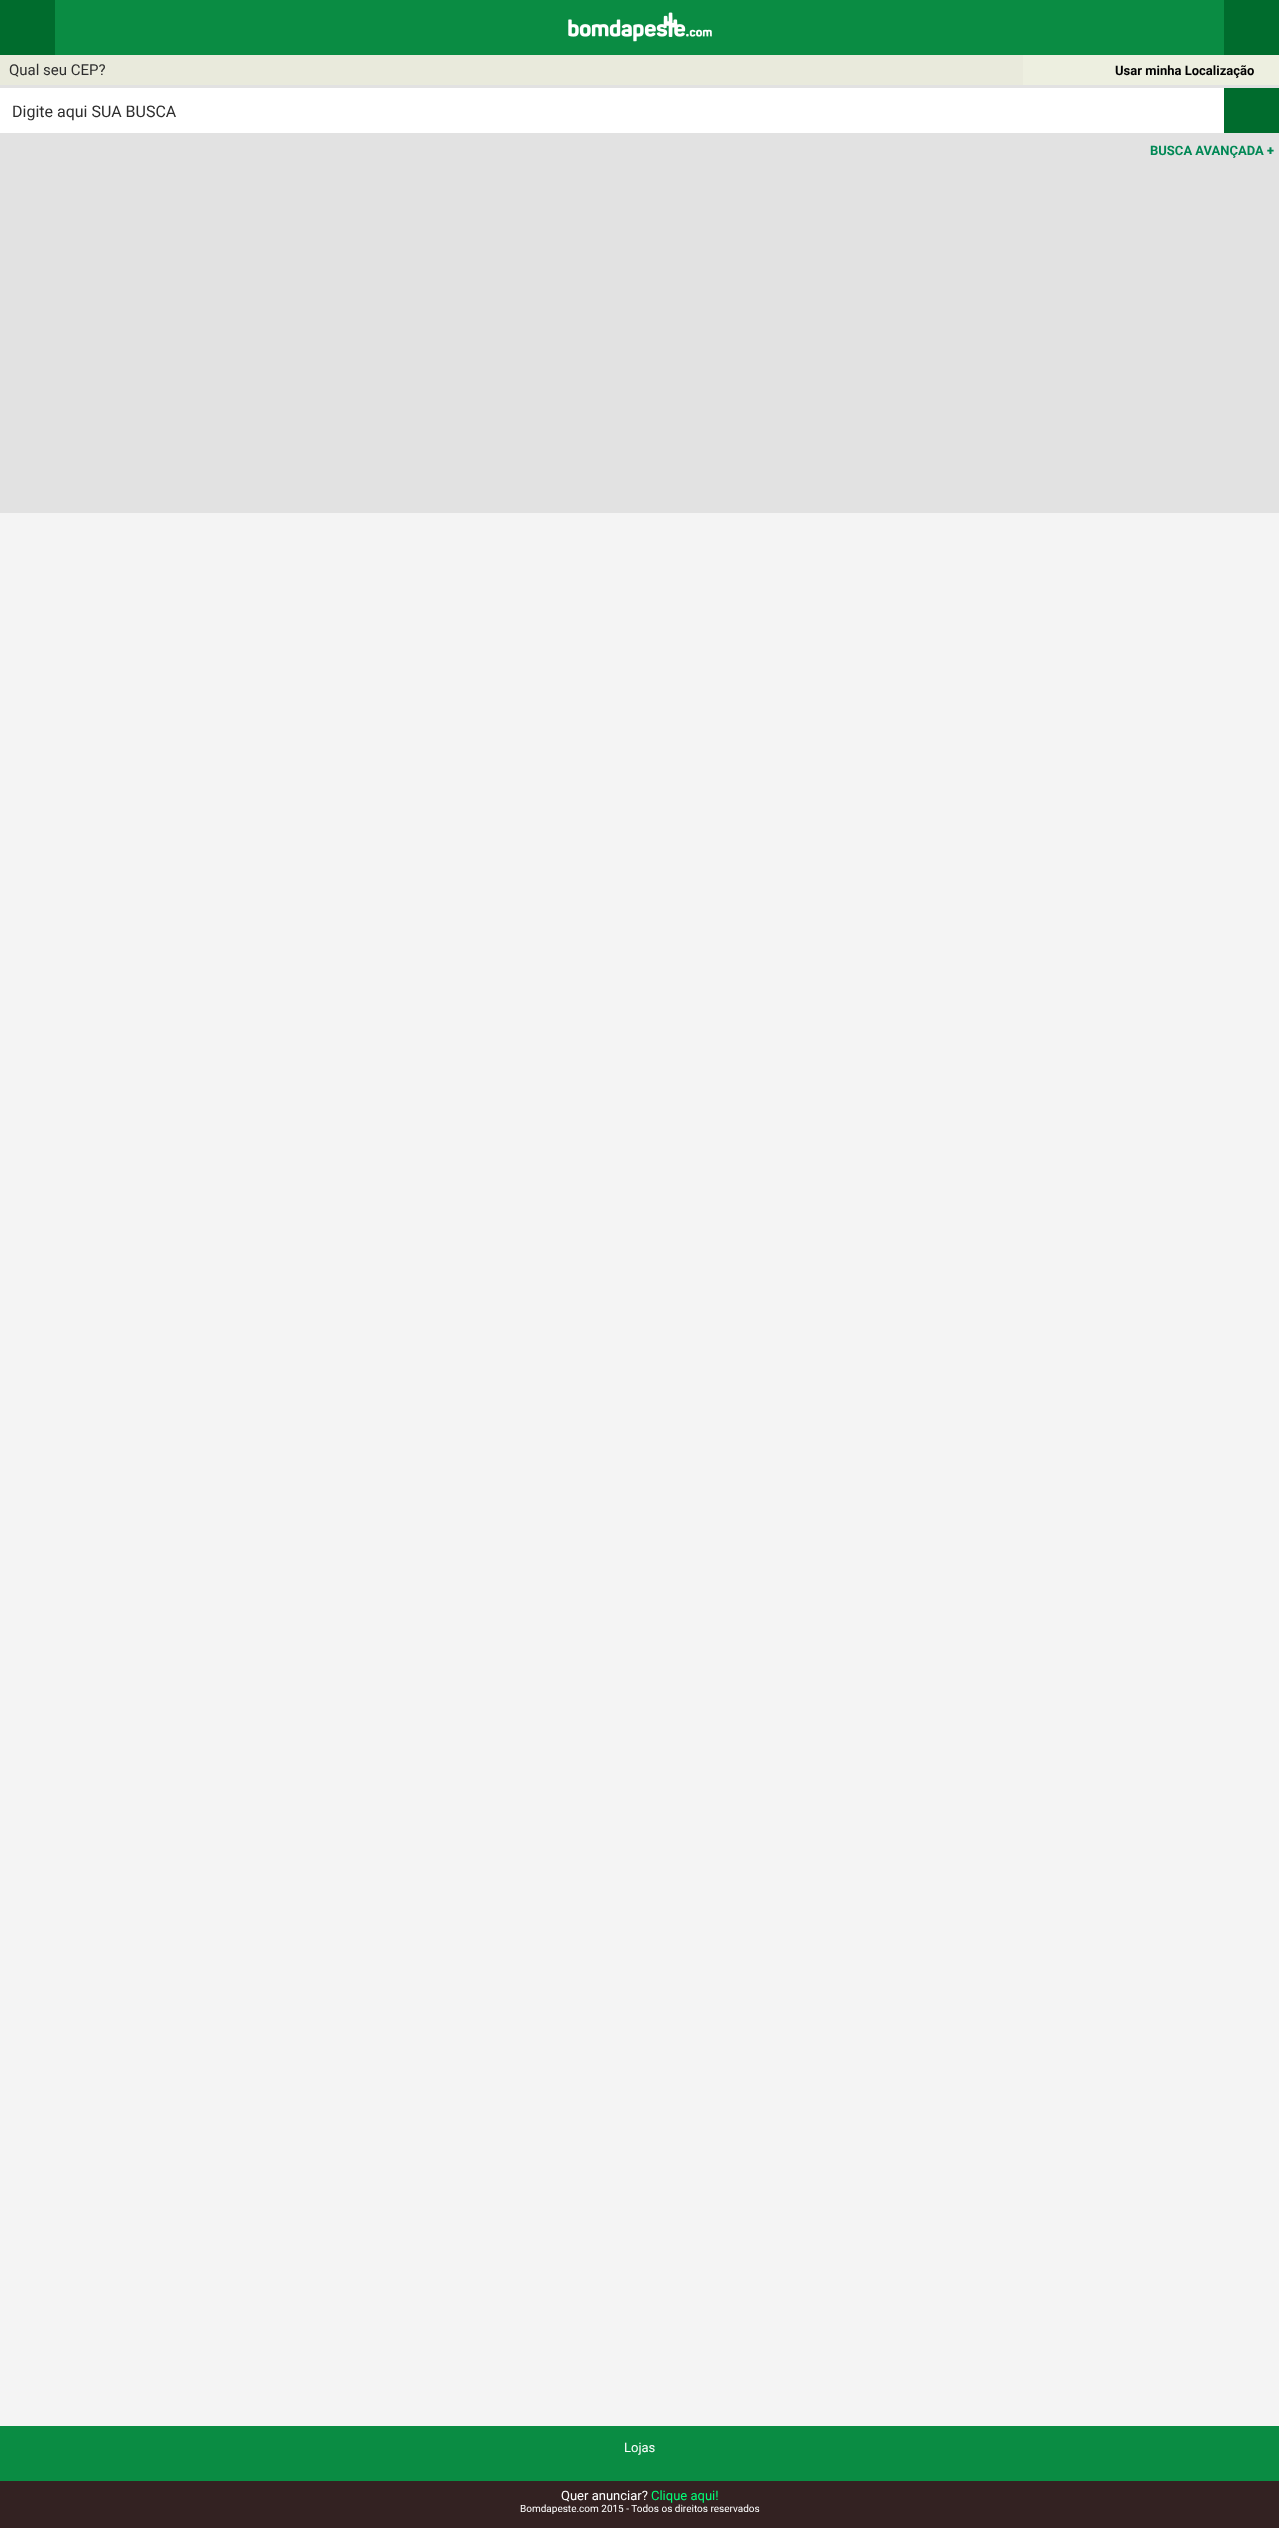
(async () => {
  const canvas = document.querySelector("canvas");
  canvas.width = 1279;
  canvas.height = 2528;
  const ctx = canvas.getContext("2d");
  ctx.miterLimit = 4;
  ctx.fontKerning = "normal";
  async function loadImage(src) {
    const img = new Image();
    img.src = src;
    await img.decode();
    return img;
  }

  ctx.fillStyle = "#f4f4f4";
  ctx.fillRect(0, 0, 1279, 2528);
  for (const [x, y, w, h, color] of [
    [0, 85, 1279, 428, "#e2e2e2"],
    [55, 0, 1169, 55, "#0a8c43"],
    [0, 0, 55, 55, "#006c2d"],
  ]) {
    ctx.fillStyle = color;
    ctx.fillRect(x, y, w, h);
  }
  ctx.drawImage(await loadImage("img/1.png"), 568, 12, 144, 30);
  for (const [x, y, w, h, color] of [
    [1224, 0, 55, 55, "#006c2d"],
    [1023, 55, 256, 30, "#edefe0"],
    [0, 55, 1023, 30, "#e9eadc"],
    [0, 88, 1224, 45, "#ffffff"],
    [1224, 88, 55, 45, "#006c2d"],
    [0, 2426, 1279, 55, "#0a8c43"],
    [0, 2481, 1279, 47, "#332222"],
  ]) {
    ctx.fillStyle = color;
    ctx.fillRect(x, y, w, h);
  }
  ctx.font = "15px Roboto";
  ctx.fillStyle = "#2e2e2e";
  ctx.fillText("Qual seu CEP?", 9, 75);
  ctx.font = "bold 13px Roboto";
  ctx.fillStyle = "#000000";
  ctx.fillText("Usar minha Localização", 1115, 75);
  ctx.font = "16px Roboto";
  ctx.fillStyle = "#2e2e2e";
  ctx.fillText("Digite aqui SUA BUSCA", 12, 117);
  ctx.font = "bold 13px Roboto";
  ctx.fillStyle = "#008855";
  ctx.fillText("BUSCA AVANÇADA", 1150, 155);
  ctx.font = "900 13px Roboto";
  ctx.fillText("+", 1267, 155);
  ctx.font = "13px Roboto";
  ctx.fillStyle = "#ffffff";
  ctx.fillText("Lojas", 624, 2452);
  ctx.fillText("Quer anunciar?", 561, 2500);
  ctx.fillStyle = "#00ff77";
  ctx.fillText("Clique aqui!", 651, 2500);
  ctx.font = "10px Roboto";
  ctx.fillStyle = "#ffffff";
  ctx.fillText("Bomdapeste.com 2015 - Todos os direitos reservados", 520, 2512);
})();
